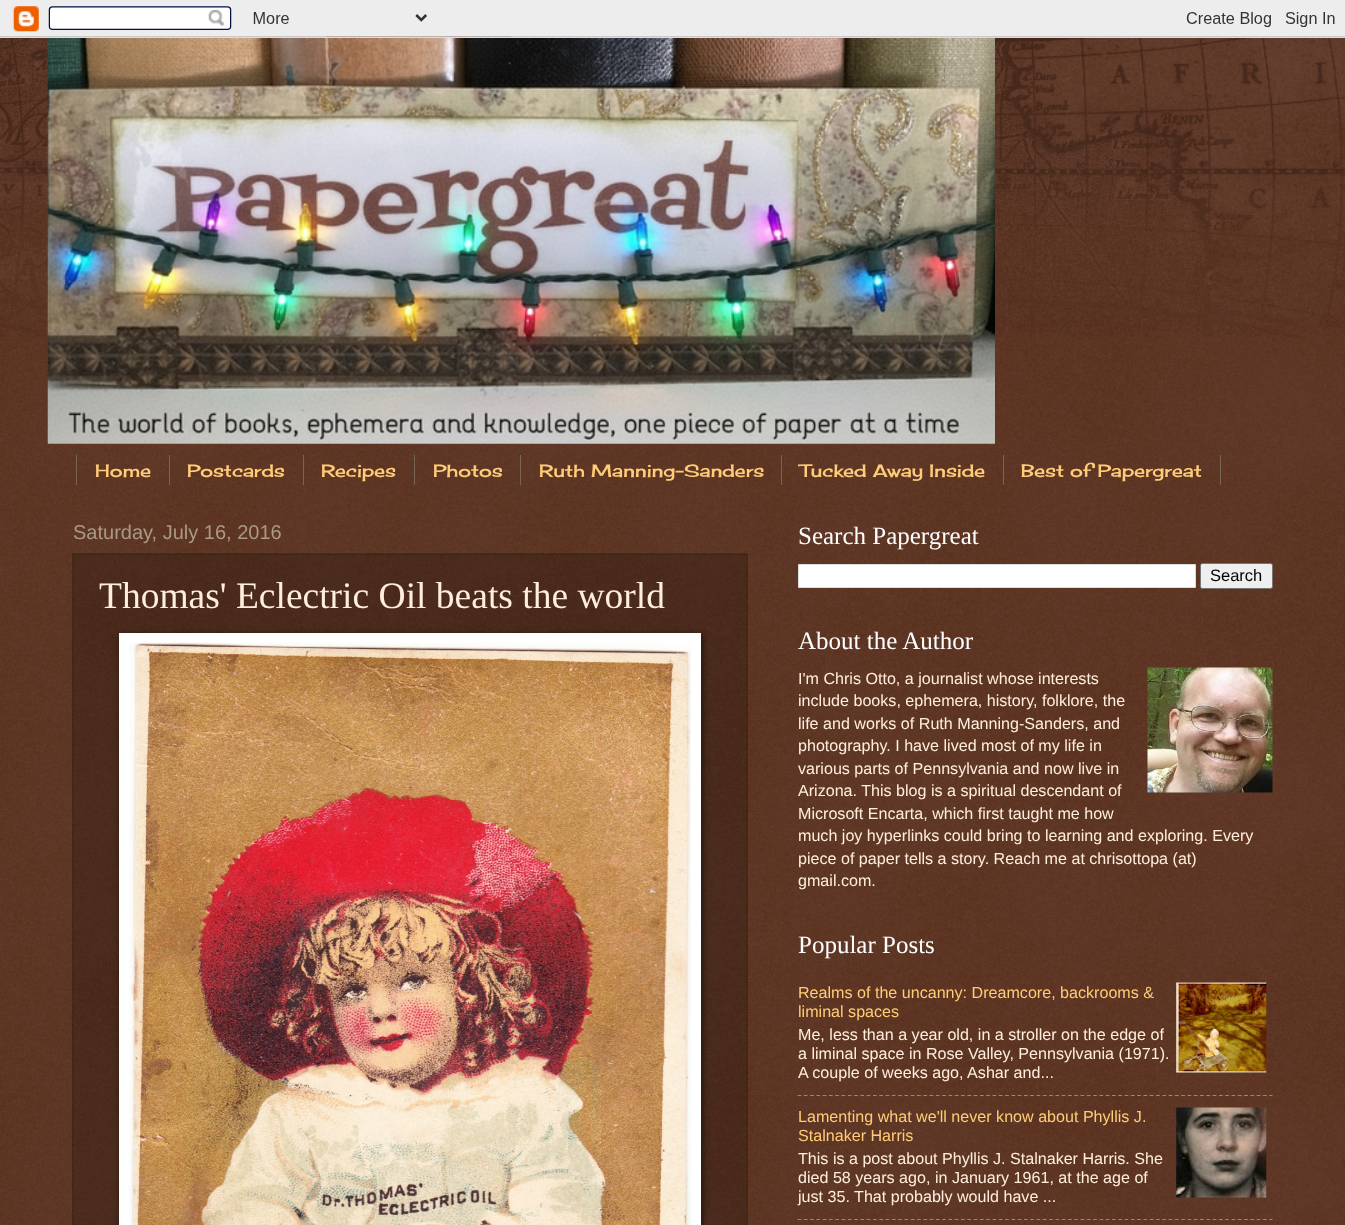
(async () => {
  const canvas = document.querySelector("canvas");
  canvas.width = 1345;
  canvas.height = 1225;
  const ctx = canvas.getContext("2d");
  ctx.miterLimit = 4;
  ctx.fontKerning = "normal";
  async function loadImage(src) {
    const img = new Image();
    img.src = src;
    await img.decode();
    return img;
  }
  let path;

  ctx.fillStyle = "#441500";
  ctx.fillRect(0, 0, 1345, 1225);
  ctx.drawImage(await loadImage("img/1.png"), 0, 36, 1345, 1189);
  ctx.drawImage(await loadImage("img/2.png"), 0, 0, 1345, 38);
  ctx.drawImage(await loadImage("img/3.png"), 0, 38, 1345, 299);
  ctx.drawImage(await loadImage("img/4.png"), 47, 38, 948, 406);
  for (const [x, y, w, h, color] of [
    [169, 455, 1, 30, "#776655"],
    [76, 455, 1, 30, "#776655"],
    [303, 455, 1, 30, "#776655"],
    [414, 455, 1, 30, "#776655"],
    [520, 455, 1, 30, "#776655"],
    [781, 455, 1, 30, "#776655"],
    [1003, 455, 1, 30, "#776655"],
    [1220, 455, 1, 30, "#776655"],
    [72, 553, 676, 672, "rgba(0, 0, 0, 0.2)"],
  ]) {
    ctx.fillStyle = color;
    ctx.fillRect(x, y, w, h);
  }
  path = new Path2D("M72.5 554.5H747.5");
  ctx.strokeStyle = "#332211";
  ctx.lineWidth = 1.2;
  ctx.setLineDash([1.25, 1.25]);
  ctx.stroke(path);
  path = new Path2D("M747 554V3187.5");
  ctx.stroke(path);
  path = new Path2D("M73 554V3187.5");
  ctx.stroke(path);
  ctx.fillStyle = "rgba(0, 0, 0, 0.5)";
  ctx.filter = "blur(3px)";
  ctx.beginPath();
  ctx.rect(120, 634, 583, 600);
  ctx.fill();
  ctx.filter = "none";
  ctx.fillStyle = "#ffffff";
  ctx.fillRect(119, 633, 582, 592);
  ctx.drawImage(await loadImage("img/5.png"), 129, 642, 563, 583);
  ctx.beginPath();
  ctx.rect(798.5, 564.5, 397, 23);
  ctx.fill();
  ctx.strokeStyle = "#dddddd";
  ctx.lineWidth = 1;
  ctx.setLineDash([]);
  ctx.stroke();
  ctx.fillStyle = "#efefef";
  ctx.beginPath();
  ctx.roundRect(1200.5, 563.5, 72, 25, 2);
  ctx.fill();
  ctx.strokeStyle = "#767676";
  ctx.stroke();
  ctx.drawImage(await loadImage("img/6.png"), 1147, 667, 126, 126);
  ctx.drawImage(await loadImage("img/7.png"), 1176, 982, 91, 91);
  path = new Path2D("M797.5 1095.5H1272.5");
  ctx.strokeStyle = "#998877";
  ctx.lineWidth = 1.2;
  ctx.setLineDash([3.75, 2.54]);
  ctx.stroke(path);
  ctx.drawImage(await loadImage("img/8.png"), 1176, 1107, 91, 91);
  path = new Path2D("M797.5 1219.5H1272.5");
  ctx.stroke(path);
  ctx.font = "17.5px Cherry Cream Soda";
  ctx.fillStyle = "#ffcc77";
  for (const [text, x, y] of [
    ["Home", 95, 477],
    ["Postcards", 187, 477],
    ["Recipes", 321, 477],
    ["Photos", 433, 477],
    ["Ruth Manning-Sanders", 539, 477],
    ["Tucked Away Inside", 800, 477],
    ["Best of Papergreat", 1021, 477],
  ]) {
    ctx.fillText(text, x, y);
  }
  ctx.font = "20px Liberation Sans";
  ctx.fillStyle = "#aa9988";
  ctx.fillText("Saturday, July 16, 2016", 73, 539);
  ctx.font = "37.5px Liberation Serif";
  ctx.fillStyle = "#ffeedd";
  ctx.fillText("Thomas' Eclectric Oil beats the world", 99, 608);
  ctx.font = "25px Liberation Serif";
  ctx.fillStyle = "#ffffff";
  ctx.fillText("Search Papergreat", 798, 544);
  ctx.font = "16.5px Liberation Sans";
  ctx.fillStyle = "#000000";
  ctx.fillText("Search", 1210, 581);
  ctx.font = "25px Liberation Serif";
  ctx.fillStyle = "#ffffff";
  ctx.fillText("About the Author", 798, 649);
  ctx.font = "16.1px Liberation Sans";
  ctx.fillStyle = "#ffeedd";
  for (const [text, x, y] of [
    ["I'm Chris Otto, a journalist whose interests", 798, 684],
    ["include books, ephemera, history, folklore, the", 798, 706],
    ["life and works of Ruth Manning-Sanders, and", 798, 729],
    ["photography. I have lived most of my life in", 798, 751],
    ["various parts of Pennsylvania and now live in", 798, 774],
    ["Arizona. This blog is a spiritual descendant of", 798, 796],
    ["Microsoft Encarta, which first taught me how", 798, 819],
    ["much joy hyperlinks could bring to learning and exploring. Every", 798, 841],
    ["piece of paper tells a story. Reach me at chrisottopa (at)", 798, 864],
    ["gmail.com.", 798, 886],
  ]) {
    ctx.fillText(text, x, y);
  }
  ctx.font = "25px Liberation Serif";
  ctx.fillStyle = "#ffffff";
  ctx.fillText("Popular Posts", 798, 953);
  ctx.font = "16.1px Liberation Sans";
  ctx.fillStyle = "#ffcc77";
  ctx.fillText("Realms of the uncanny: Dreamcore, backrooms &", 798, 998);
  ctx.fillText("liminal spaces", 798, 1017);
  ctx.fillStyle = "#ffeedd";
  for (const [text, x, y] of [
    ["Me, less than a year old, in a stroller on the edge of", 798, 1040],
    ["a liminal space in Rose Valley, Pennsylvania (1971).", 798, 1059],
    ["A couple of weeks ago, Ashar and...", 798, 1078],
  ]) {
    ctx.fillText(text, x, y);
  }
  ctx.fillStyle = "#ffcc77";
  ctx.fillText("Lamenting what we'll never know about Phyllis J.", 798, 1122);
  ctx.fillText("Stalnaker Harris", 798, 1141);
  ctx.fillStyle = "#ffeedd";
  for (const [text, x, y] of [
    ["This is a post about Phyllis J. Stalnaker Harris. She", 798, 1164],
    ["died 58 years ago, in January 1961, at the age of", 798, 1183],
    ["just 35. That probably would have ...", 798, 1202],
  ]) {
    ctx.fillText(text, x, y);
  }
})();
